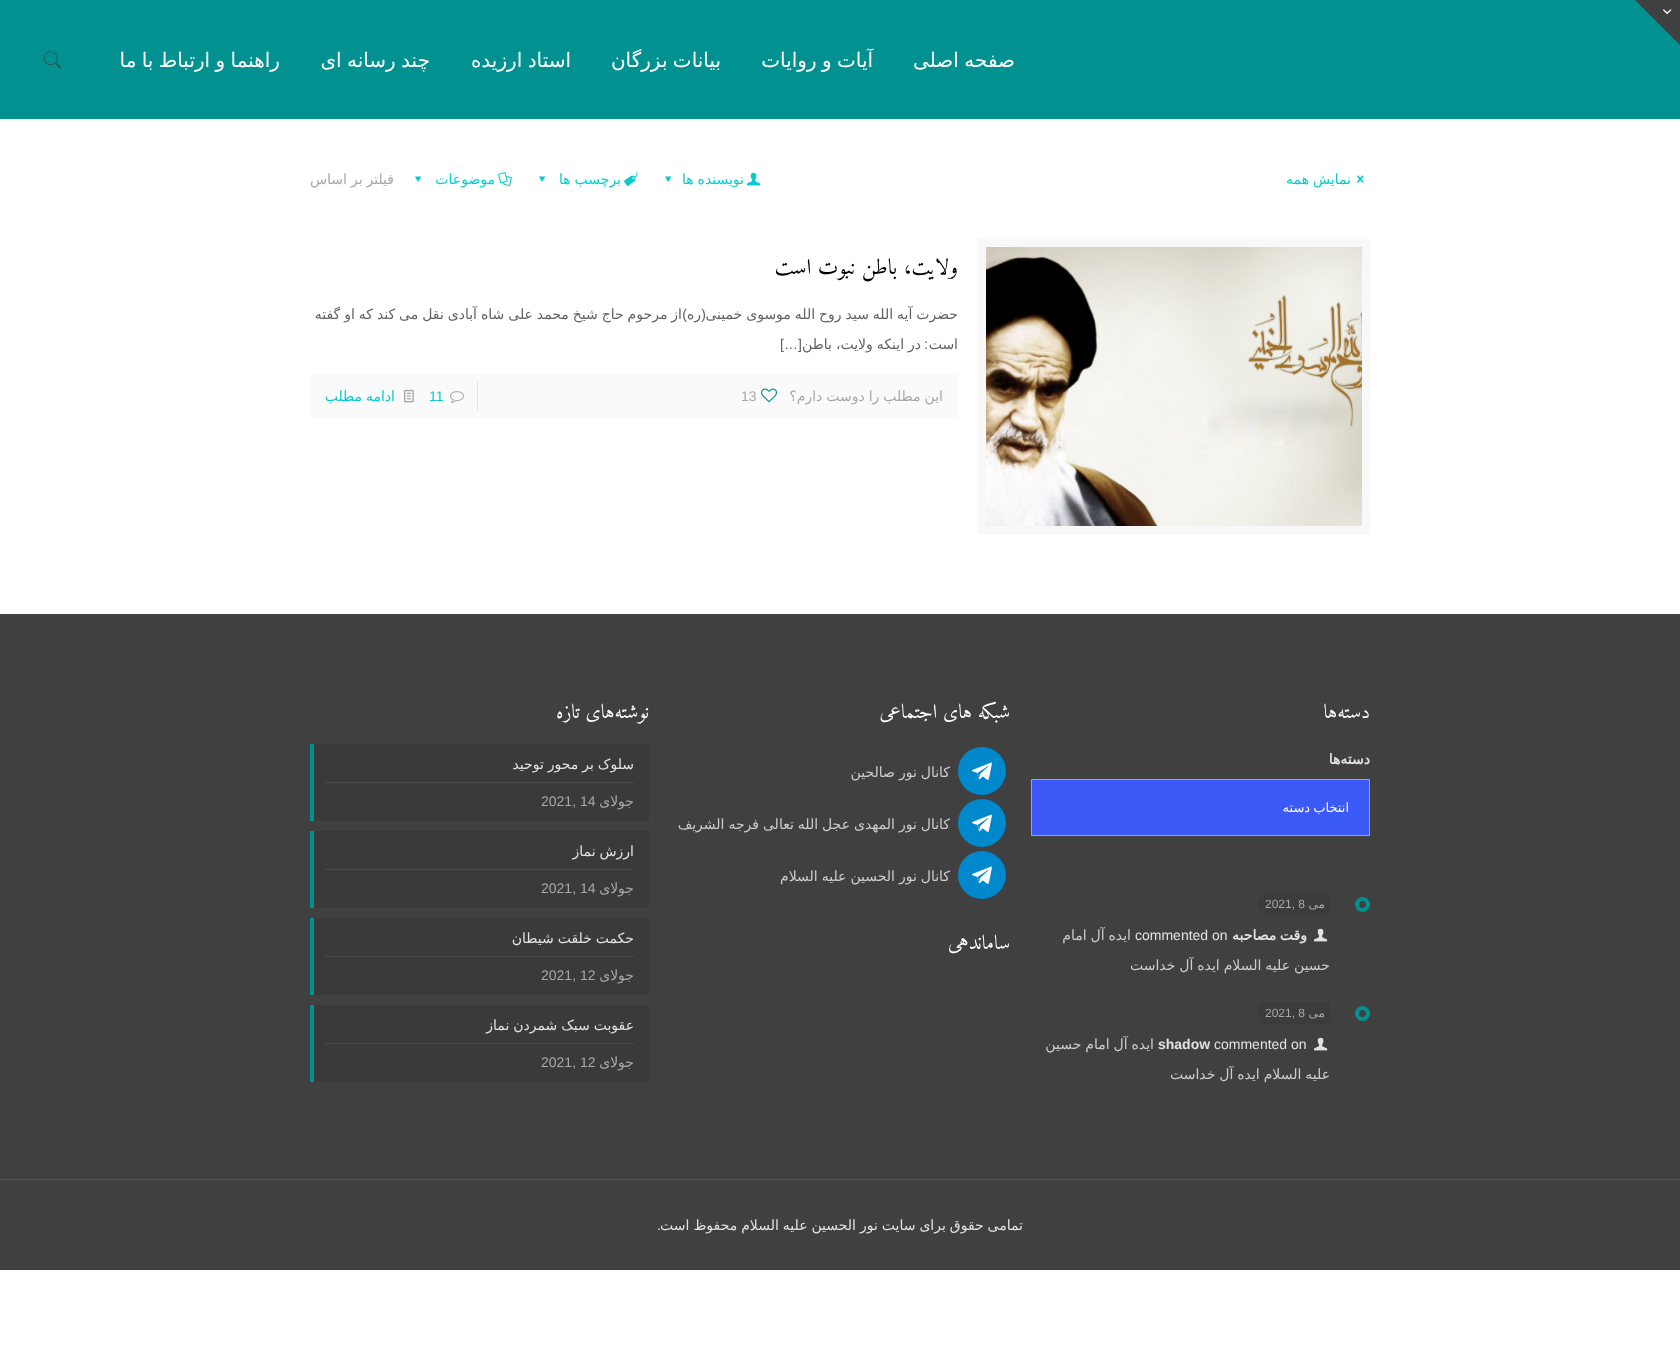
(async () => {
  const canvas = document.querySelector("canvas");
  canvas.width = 1680;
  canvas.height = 1369;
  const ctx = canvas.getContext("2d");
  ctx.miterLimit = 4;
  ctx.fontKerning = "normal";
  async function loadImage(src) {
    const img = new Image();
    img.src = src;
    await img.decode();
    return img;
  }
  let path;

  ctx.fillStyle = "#ffffff";
  ctx.fillRect(0, 0, 1680, 1369);
  ctx.fillStyle = "#029191";
  ctx.fillRect(0, 0, 1680, 119);
  ctx.fillStyle = "#404040";
  path = new Path2D("M1680 0V45L1635 0Z");
  ctx.fill(path);
  ctx.drawImage(await loadImage("img/1.png"), 1663, 9, 9, 5);
  ctx.drawImage(await loadImage("img/2.png"), 43, 51, 18, 18);
  ctx.drawImage(await loadImage("img/3.png"), 1357, 175, 7, 8);
  ctx.drawImage(await loadImage("img/4.png"), 747, 172, 14, 14);
  ctx.fillStyle = "#04cccc";
  path = new Path2D("M671.5 176.5L668 182L665 176.5Z");
  ctx.fill(path);
  ctx.drawImage(await loadImage("img/5.png"), 624, 172, 14, 14);
  path = new Path2D("M545.5 176.5L542 182L539 176.5Z");
  ctx.fill(path);
  ctx.drawImage(await loadImage("img/6.png"), 498, 172, 14, 15);
  path = new Path2D("M421.5 176.5L418 182L415 176.5Z");
  ctx.fill(path);
  ctx.strokeStyle = "#f8f8f8";
  ctx.lineWidth = 8;
  ctx.strokeRect(982, 243, 384, 287);
  ctx.drawImage(await loadImage("img/7.png"), 986, 247, 376, 279);
  ctx.fillStyle = "#fafafa";
  ctx.fillRect(310, 374, 648, 44);
  ctx.drawImage(await loadImage("img/8.png"), 761, 388, 16, 15);
  ctx.fillStyle = "#e6e6e6";
  ctx.fillRect(477, 381, 1, 30);
  ctx.drawImage(await loadImage("img/9.png"), 450, 391, 14, 12);
  ctx.drawImage(await loadImage("img/10.png"), 404, 389, 10, 14);
  ctx.fillStyle = "#404040";
  ctx.fillRect(0, 614, 1680, 656);
  ctx.fillStyle = "#3b59f6";
  ctx.beginPath();
  ctx.rect(1031.5, 779.5, 338, 56);
  ctx.fill();
  ctx.strokeStyle = "#a4a4a4";
  ctx.lineWidth = 1;
  ctx.stroke();
  ctx.beginPath();
  ctx.arc(1362.5, 904.5, 5.5, 0, Math.PI * 2);
  ctx.strokeStyle = "#029191";
  ctx.lineWidth = 4;
  ctx.stroke();
  ctx.fillStyle = "#3c3c3c";
  ctx.beginPath();
  ctx.roundRect(1260, 893, 70, 22, 4);
  ctx.fill();
  ctx.fillStyle = "rgba(0, 0, 0, 0.07)";
  path = new Path2D("M1260.5 899V909L1255.5 904Z");
  ctx.fill(path);
  ctx.drawImage(await loadImage("img/11.png"), 1314, 928, 14, 14);
  ctx.beginPath();
  ctx.arc(1362.5, 1013.5, 5.5, 0, Math.PI * 2);
  ctx.stroke();
  ctx.fillStyle = "#3c3c3c";
  ctx.beginPath();
  ctx.roundRect(1260, 1002, 70, 22, 4);
  ctx.fill();
  ctx.fillStyle = "rgba(0, 0, 0, 0.07)";
  path = new Path2D("M1260.5 1008V1018L1255.5 1013Z");
  ctx.fill(path);
  ctx.drawImage(await loadImage("img/11.png"), 1314, 1037, 14, 14);
  ctx.fillStyle = "#0088cc";
  ctx.beginPath();
  ctx.arc(982, 771, 24, 0, Math.PI * 2);
  ctx.fill();
  ctx.drawImage(await loadImage("img/12.png"), 972, 762, 20, 18);
  ctx.beginPath();
  ctx.arc(982, 823, 24, 0, Math.PI * 2);
  ctx.fill();
  ctx.drawImage(await loadImage("img/12.png"), 972, 814, 20, 18);
  ctx.beginPath();
  ctx.arc(982, 875, 24, 0, Math.PI * 2);
  ctx.fill();
  ctx.drawImage(await loadImage("img/12.png"), 972, 866, 20, 18);
  for (const [x, y, w, h, color] of [
    [314, 744, 335, 77, "#3a3a3a"],
    [325, 782, 309, 1, "#4a4a4a"],
    [310, 744, 4, 77, "#029191"],
    [314, 831, 335, 77, "#3a3a3a"],
    [325, 869, 309, 1, "#4a4a4a"],
    [310, 831, 4, 77, "#029191"],
    [314, 918, 335, 77, "#3a3a3a"],
    [325, 956, 309, 1, "#4a4a4a"],
    [310, 918, 4, 77, "#029191"],
    [314, 1005, 335, 77, "#3a3a3a"],
    [325, 1043, 309, 1, "#4a4a4a"],
    [310, 1005, 4, 77, "#029191"],
    [0, 1179, 1680, 1, "#535353"],
  ]) {
    ctx.fillStyle = color;
    ctx.fillRect(x, y, w, h);
  }
  ctx.wordSpacing = "-1px";
  ctx.direction = "rtl";
  ctx.font = "20px DejaVu Sans";
  ctx.fillStyle = "#ffffff";
  for (const [text, x, y] of [
    ["صفحه اصلی", 1015, 67],
    ["آیات و روایات", 873, 67],
    ["بیانات بزرگان", 721, 67],
    ["استاد ارزیده", 571, 67],
    ["چند رسانه ای", 430, 67],
    ["راهنما و ارتباط با ما", 280, 67],
  ]) {
    ctx.fillText(text, x, y);
  }
  ctx.wordSpacing = "-0.5px";
  ctx.font = "14px DejaVu Sans";
  ctx.fillStyle = "#04cccc";
  for (const [text, x, y] of [
    ["نمایش همه", 1351, 184],
    ["نویسنده ها", 744, 184],
    ["برچسب ها", 621, 184],
  ]) {
    ctx.fillText(text, x, y);
  }
  ctx.wordSpacing = "0px";
  ctx.fillText("موضوعات", 495, 184);
  ctx.wordSpacing = "-0.5px";
  ctx.fillStyle = "#a8a8a8";
  ctx.fillText("فیلتر بر اساس", 394, 184);
  ctx.wordSpacing = "0px";
  ctx.font = "22px Amiri";
  ctx.fillStyle = "#000000";
  ctx.fillText("ولایت، باطن نبوت است", 958, 274);
  ctx.wordSpacing = "-0.5px";
  ctx.font = "14px DejaVu Sans";
  ctx.fillStyle = "#626262";
  ctx.fillText("حضرت آیه الله سید روح الله موسوی خمینی", 958, 319);
  ctx.fillText("از مرحوم حاج شیخ محمد علی شاه آبادی نقل می کند که او گفته", 682, 319);
  ctx.wordSpacing = "0px";
  ctx.font = "14px Liberation Sans";
  ctx.fillText("(", 706, 319);
  ctx.font = "14px DejaVu Sans";
  ctx.fillText("ره", 701, 319);
  ctx.font = "14px Liberation Sans";
  ctx.fillText(")", 687, 319);
  ctx.font = "14px DejaVu Sans";
  ctx.fillText("است", 958, 349);
  ctx.font = "14px Liberation Sans";
  ctx.fillText(":", 928, 349);
  ctx.wordSpacing = "-0.5px";
  ctx.font = "14px DejaVu Sans";
  ctx.fillText("در اینکه ولایت، باطن", 921, 349);
  ctx.wordSpacing = "0px";
  ctx.direction = "ltr";
  ctx.font = "14px Liberation Sans";
  ctx.fillText("[…]", 780, 349);
  ctx.wordSpacing = "-0.5px";
  ctx.direction = "rtl";
  ctx.font = "14px DejaVu Sans";
  ctx.fillStyle = "#a8a8a8";
  ctx.fillText("این مطلب را دوست دارم؟", 943, 401);
  ctx.wordSpacing = "0px";
  ctx.direction = "ltr";
  ctx.font = "14px Liberation Sans";
  ctx.fillText("13", 741, 401);
  ctx.fillStyle = "#04cccc";
  ctx.fillText("11", 429, 401);
  ctx.wordSpacing = "-0.5px";
  ctx.direction = "rtl";
  ctx.font = "14px DejaVu Sans";
  ctx.fillText("ادامه مطلب", 395, 401);
  ctx.wordSpacing = "0px";
  ctx.font = "20px Amiri";
  ctx.fillStyle = "#ffffff";
  ctx.fillText("دسته‌ها", 1370, 718);
  ctx.font = "bold 14px DejaVu Sans";
  ctx.fillStyle = "#e2e2e2";
  ctx.fillText("دسته‌ها", 1370, 764);
  ctx.wordSpacing = "-1px";
  ctx.font = "13px DejaVu Sans";
  ctx.fillStyle = "#f8f8f8";
  ctx.fillText("انتخاب دسته", 1349, 812);
  ctx.wordSpacing = "0px";
  ctx.font = "12px DejaVu Sans";
  ctx.fillStyle = "#a8a8a8";
  ctx.fillText("می", 1325, 908);
  ctx.direction = "ltr";
  ctx.font = "12px Liberation Sans";
  ctx.fillText("2021, 8", 1265, 908);
  ctx.wordSpacing = "-1px";
  ctx.direction = "rtl";
  ctx.font = "bold 14px DejaVu Sans";
  ctx.fillStyle = "#e2e2e2";
  ctx.fillText("وقت مصاحبه", 1307, 940);
  ctx.wordSpacing = "0px";
  ctx.direction = "ltr";
  ctx.font = "14px Liberation Sans";
  ctx.fillText("commented on", 1135, 940);
  ctx.wordSpacing = "-0.5px";
  ctx.direction = "rtl";
  ctx.font = "14px DejaVu Sans";
  ctx.fillStyle = "#cccccc";
  ctx.fillText("ایده آل امام", 1131, 940);
  ctx.fillText("حسین علیه السلام ایده آل خداست", 1330, 970);
  ctx.wordSpacing = "0px";
  ctx.font = "12px DejaVu Sans";
  ctx.fillStyle = "#a8a8a8";
  ctx.fillText("می", 1325, 1017);
  ctx.direction = "ltr";
  ctx.font = "12px Liberation Sans";
  ctx.fillText("2021, 8", 1265, 1017);
  ctx.font = "14px Liberation Sans";
  ctx.fillStyle = "#e2e2e2";
  ctx.fillText("commented on", 1214, 1049);
  ctx.font = "bold 14px Liberation Sans";
  ctx.fillText("shadow", 1158, 1049);
  ctx.wordSpacing = "-0.5px";
  ctx.direction = "rtl";
  ctx.font = "14px DejaVu Sans";
  ctx.fillStyle = "#cccccc";
  ctx.fillText("ایده آل امام حسین", 1154, 1049);
  ctx.fillText("علیه السلام ایده آل خداست", 1330, 1079);
  ctx.wordSpacing = "0px";
  ctx.font = "20px Amiri";
  ctx.fillStyle = "#ffffff";
  ctx.fillText("شبکه های اجتماعی", 1010, 718);
  ctx.wordSpacing = "-0.5px";
  ctx.font = "14px DejaVu Sans";
  ctx.fillStyle = "#cccccc";
  for (const [text, x, y] of [
    ["کانال نور صالحین", 950, 777],
    ["کانال نور المهدی عجل الله تعالی فرجه الشریف", 950, 829],
    ["کانال نور الحسین علیه السلام", 950, 881],
  ]) {
    ctx.fillText(text, x, y);
  }
  ctx.wordSpacing = "0px";
  ctx.font = "20px Amiri";
  ctx.fillStyle = "#ffffff";
  ctx.fillText("ساماندهی", 1010, 949);
  ctx.fillText("نوشته‌های تازه", 649, 718);
  ctx.wordSpacing = "-0.5px";
  ctx.font = "14px DejaVu Sans";
  ctx.fillStyle = "#e2e2e2";
  ctx.fillText("سلوک بر محور توحید", 634, 769);
  ctx.wordSpacing = "0px";
  ctx.fillStyle = "#a8a8a8";
  ctx.fillText("جولای", 634, 806);
  ctx.direction = "ltr";
  ctx.font = "14px Liberation Sans";
  ctx.fillText("2021, 14", 541, 806);
  ctx.wordSpacing = "-0.5px";
  ctx.direction = "rtl";
  ctx.font = "14px DejaVu Sans";
  ctx.fillStyle = "#e2e2e2";
  ctx.fillText("ارزش نماز", 634, 856);
  ctx.wordSpacing = "0px";
  ctx.fillStyle = "#a8a8a8";
  ctx.fillText("جولای", 634, 893);
  ctx.direction = "ltr";
  ctx.font = "14px Liberation Sans";
  ctx.fillText("2021, 14", 541, 893);
  ctx.wordSpacing = "-0.5px";
  ctx.direction = "rtl";
  ctx.font = "14px DejaVu Sans";
  ctx.fillStyle = "#e2e2e2";
  ctx.fillText("حکمت خلقت شیطان", 634, 943);
  ctx.wordSpacing = "0px";
  ctx.fillStyle = "#a8a8a8";
  ctx.fillText("جولای", 634, 980);
  ctx.direction = "ltr";
  ctx.font = "14px Liberation Sans";
  ctx.fillText("2021, 12", 541, 980);
  ctx.wordSpacing = "-0.5px";
  ctx.direction = "rtl";
  ctx.font = "14px DejaVu Sans";
  ctx.fillStyle = "#e2e2e2";
  ctx.fillText("عقوبت سبک شمردن نماز", 634, 1030);
  ctx.wordSpacing = "0px";
  ctx.fillStyle = "#a8a8a8";
  ctx.fillText("جولای", 634, 1067);
  ctx.direction = "ltr";
  ctx.font = "14px Liberation Sans";
  ctx.fillText("2021, 12", 541, 1067);
  ctx.wordSpacing = "-0.5px";
  ctx.direction = "rtl";
  ctx.font = "14px DejaVu Sans";
  ctx.fillStyle = "#e2e2e2";
  ctx.fillText("تمامی حقوق برای سایت نور الحسین علیه السلام محفوظ است", 1023, 1230);
  ctx.wordSpacing = "0px";
  ctx.font = "14px Liberation Sans";
  ctx.fillText(".", 661, 1230);
})();
